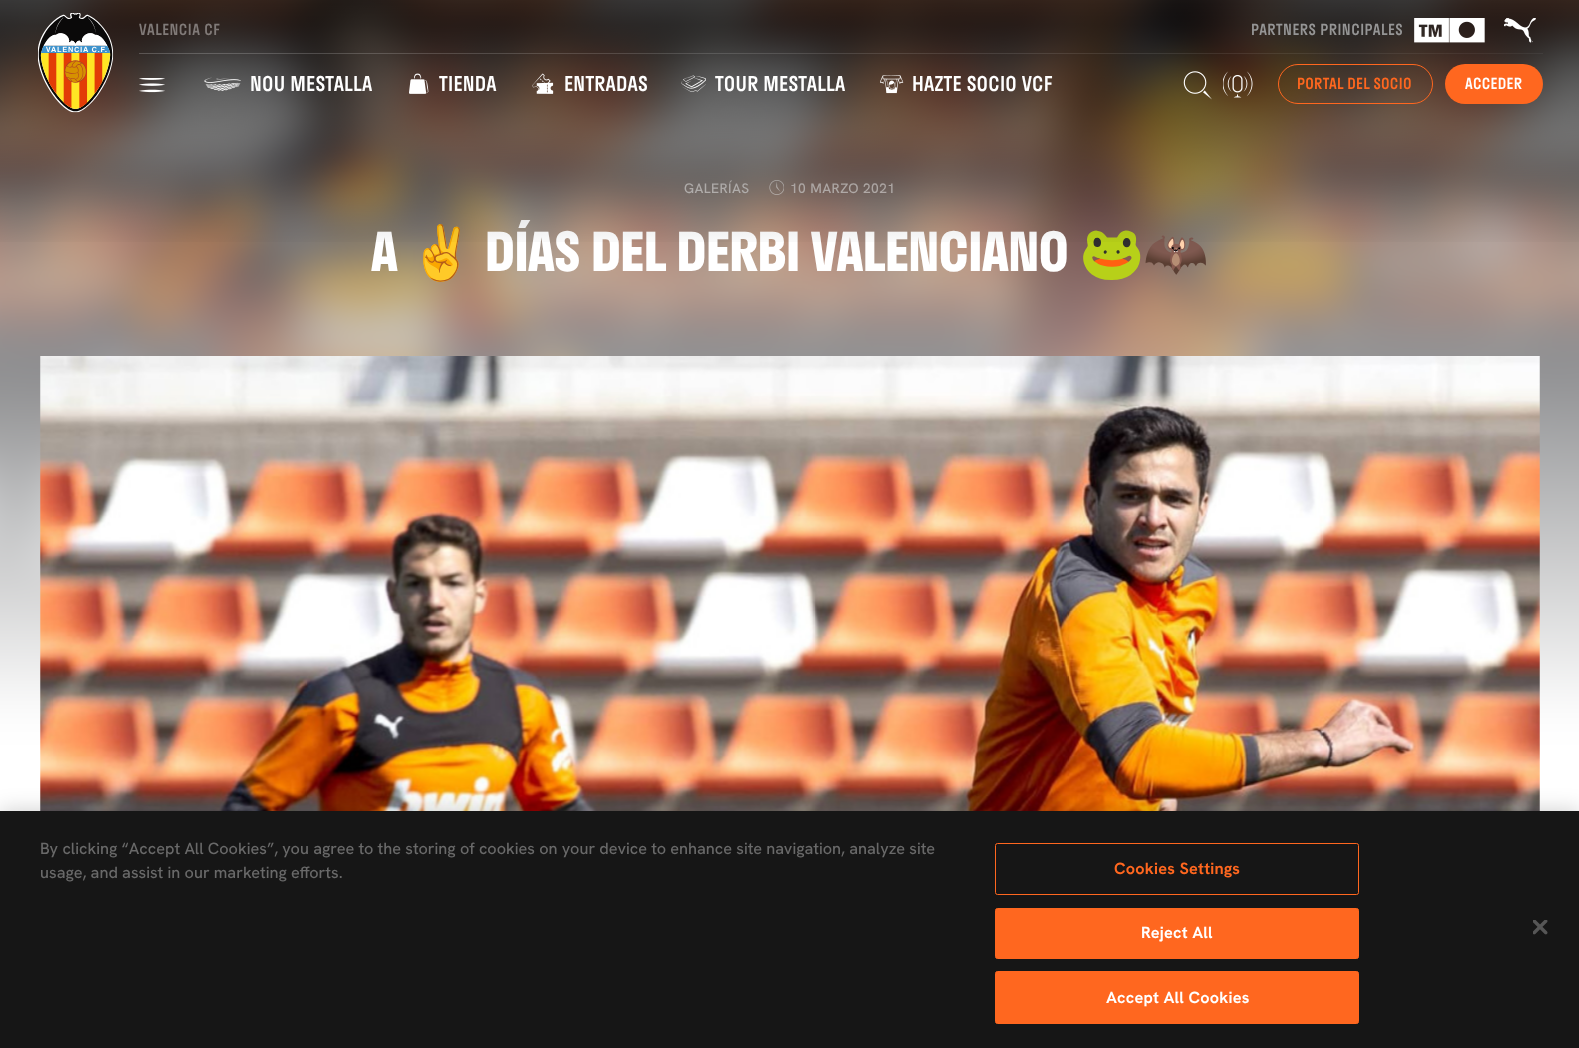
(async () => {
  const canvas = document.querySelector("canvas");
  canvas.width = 1579;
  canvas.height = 1048;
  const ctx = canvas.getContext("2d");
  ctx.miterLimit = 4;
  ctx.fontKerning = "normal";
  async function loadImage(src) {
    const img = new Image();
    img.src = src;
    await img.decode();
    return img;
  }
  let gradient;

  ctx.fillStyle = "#ffffff";
  ctx.fillRect(0, 0, 1579, 1048);
  ctx.fillStyle = "#d3d3d3";
  ctx.filter = "blur(22px)";
  ctx.beginPath();
  ctx.rect(-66, -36, 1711, 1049);
  ctx.fill();
  ctx.filter = "none";
  ctx.drawImage(await loadImage("img/12.png"), 0, 0, 1579, 811);
  ctx.drawImage(await loadImage("img/13.png"), 769, 180, 15, 15);
  ctx.drawImage(await loadImage("img/14.png"), 40, 356, 1500, 455);
  ctx.fillStyle = "rgba(0, 0, 0, 0.2)";
  ctx.filter = "blur(11px)";
  ctx.beginPath();
  ctx.rect(0, 811, 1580, 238);
  ctx.fill();
  ctx.filter = "none";
  ctx.fillStyle = "#161616";
  ctx.fillRect(0, 811, 1579, 237);
  ctx.beginPath();
  ctx.roundRect(995.5, 843.5, 363, 51, 2);
  ctx.strokeStyle = "#ff671f";
  ctx.stroke();
  ctx.fillStyle = "#ff671f";
  ctx.beginPath();
  ctx.roundRect(995.5, 908.5, 363, 50, 2);
  ctx.fill();
  ctx.stroke();
  ctx.beginPath();
  ctx.roundRect(995.5, 971.5, 363, 52, 2);
  ctx.fill();
  ctx.stroke();
  ctx.drawImage(await loadImage("img/15.png"), 1533, 920, 15, 15);
  ctx.letterSpacing = "0.4px";
  ctx.font = "500 13.75px Hanken Grotesk";
  ctx.fillStyle = "#d0ccca";
  ctx.fillText("GALERÍAS", 684, 193);
  ctx.fillStyle = "#cfc7c4";
  ctx.fillText("10 MARZO 2021", 790, 193);
  ctx.letterSpacing = "-0.5px";
  ctx.font = "bold 52.5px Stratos";
  ctx.fillStyle = "#ffffff";
  ctx.fillText("A", 371, 271);
  ctx.font = "bold 52.5px Noto Color Emoji";
  ctx.fillText("✌️", 409, 271);
  ctx.font = "bold 52.5px Stratos";
  ctx.fillText("DÍAS DEL DERBI VALENCIANO", 485, 271);
  ctx.font = "bold 52.5px Noto Color Emoji";
  ctx.fillText("🐸🦇", 1079, 271);
  gradient = ctx.createLinearGradient(790, 0, 790, 250);
  gradient.addColorStop(0.1, "rgba(0, 0, 0, 0.6)");
  gradient.addColorStop(1, "rgba(0, 0, 0, 0)");
  ctx.fillStyle = gradient;
  ctx.fillRect(0, 0, 1579, 242);
  ctx.drawImage(await loadImage("img/9.png"), 880, 75, 24, 19);
  ctx.letterSpacing = "0.25px";
  ctx.font = "500 20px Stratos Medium";
  ctx.fillStyle = "#ffffff";
  ctx.fillText("HAZTE SOCIO VCF", 912, 91);
  ctx.drawImage(await loadImage("img/8.png"), 681, 75, 25, 17);
  ctx.fillText("TOUR MESTALLA", 715, 91);
  ctx.drawImage(await loadImage("img/7.png"), 532, 73, 22, 21);
  ctx.fillText("ENTRADAS", 564, 91);
  ctx.drawImage(await loadImage("img/6.png"), 409, 73, 20, 21);
  ctx.fillText("TIENDA", 439, 91);
  ctx.drawImage(await loadImage("img/5.png"), 204, 77, 37, 14);
  ctx.fillText("NOU MESTALLA", 250, 91);
  ctx.drawImage(await loadImage("img/4.png"), 139, 78, 26, 15);
  ctx.drawImage(await loadImage("img/11.png"), 1223, 71, 30, 27);
  ctx.drawImage(await loadImage("img/10.png"), 1183, 71, 29, 29);
  ctx.fillStyle = "#ff671f";
  ctx.beginPath();
  ctx.roundRect(1445, 64, 98, 40, 20);
  ctx.fill();
  ctx.letterSpacing = "0.3px";
  ctx.font = "500 15px Stratos Medium";
  ctx.fillStyle = "#ffffff";
  ctx.fillText("ACCEDER", 1465, 89);
  ctx.beginPath();
  ctx.roundRect(1278.5, 64.5, 154, 39, 19.5);
  ctx.stroke();
  ctx.fillStyle = "#ff671f";
  ctx.fillText("PORTAL DEL SOCIO", 1297, 89);
  ctx.drawImage(await loadImage("img/3.png"), 1504, 18, 32, 25);
  ctx.drawImage(await loadImage("img/2.png"), 1414, 18, 71, 25);
  ctx.letterSpacing = "0.5px";
  ctx.fillStyle = "#959595";
  ctx.fillText("PARTNERS PRINCIPALES", 1251, 35);
  ctx.fillStyle = "#807a78";
  ctx.fillText("VALENCIA CF", 139, 35);
  gradient = ctx.createLinearGradient(139, 53, 1543, 53);
  gradient.addColorStop(0, "rgba(255, 255, 255, 0.2)");
  gradient.addColorStop(0.99, "rgba(255, 255, 255, 0.05)");
  ctx.fillStyle = gradient;
  ctx.fillRect(139, 53, 1404, 1);
  ctx.drawImage(await loadImage("img/1.png"), 38, 13, 76, 100);
  ctx.letterSpacing = "0px";
  ctx.font = "500 16.25px Hanken Grotesk";
  ctx.fillStyle = "#696969";
  ctx.fillText("By clicking “Accept All Cookies”, you agree to the storing of cookies on your device to enhance site navigation, analyze site", 40, 854);
  ctx.fillText("usage, and assist in our marketing efforts.", 40, 878);
  ctx.letterSpacing = "0.2px";
  ctx.font = "bold 16.25px Hanken Grotesk";
  ctx.fillStyle = "#ff671f";
  ctx.fillText("Cookies Settings", 1114, 874);
  ctx.fillStyle = "#ffffff";
  ctx.fillText("Reject All", 1141, 938);
  ctx.fillText("Accept All Cookies", 1106, 1003);
})();
